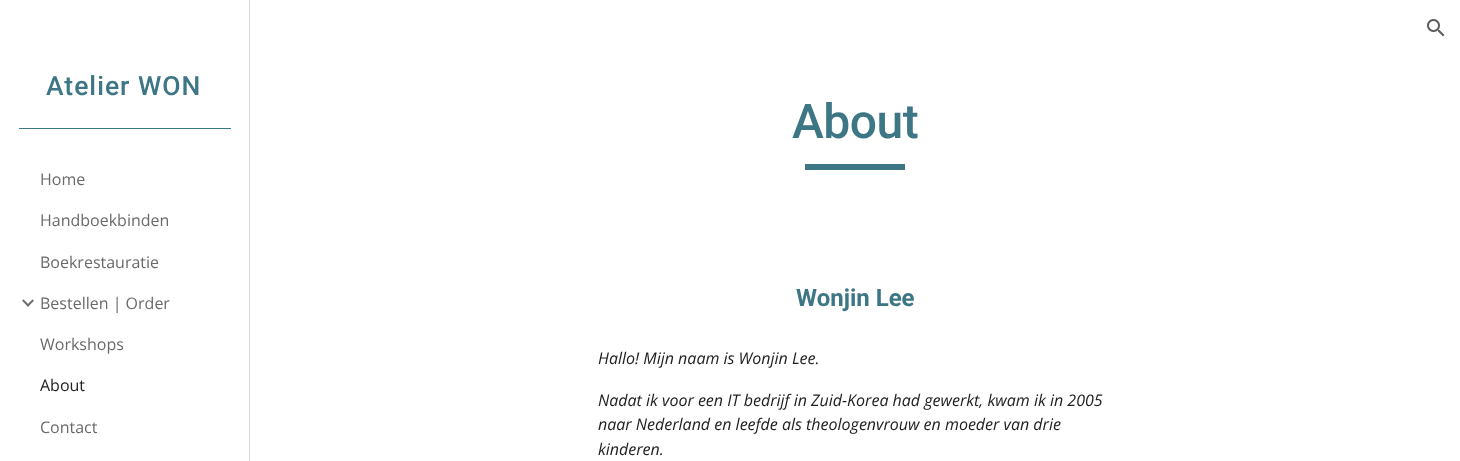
(async () => {
  const canvas = document.querySelector("canvas");
  canvas.width = 1460;
  canvas.height = 461;
  const ctx = canvas.getContext("2d");
  ctx.miterLimit = 4;
  ctx.fontKerning = "normal";
  async function loadImage(src) {
    const img = new Image();
    img.src = src;
    await img.decode();
    return img;
  }

  ctx.fillStyle = "#ffffff";
  ctx.fillRect(0, 0, 1460, 461);
  ctx.drawImage(await loadImage("img/1.png"), 1427, 19, 18, 18);
  ctx.fillStyle = "#d9d9d9";
  ctx.fillRect(249, 0, 1, 461);
  ctx.fillStyle = "#3d7684";
  ctx.fillRect(19, 128, 212, 1);
  ctx.drawImage(await loadImage("img/2.png"), 22, 299, 12, 8);
  ctx.fillRect(805, 164, 100, 6);
  ctx.letterSpacing = "1px";
  ctx.font = "500 26.5px Roboto";
  ctx.fillText("Atelier WON", 46, 95);
  ctx.letterSpacing = "0px";
  ctx.font = "16px Open Sans";
  ctx.fillStyle = "#6a6a6a";
  for (const [text, x, y] of [
    ["Home", 40, 185],
    ["Handboekbinden", 40, 226],
    ["Boekrestauratie", 40, 268],
    ["Bestellen | Order", 40, 309],
    ["Workshops", 40, 350],
  ]) {
    ctx.fillText(text, x, y);
  }
  ctx.fillStyle = "#212121";
  ctx.fillText("About", 40, 391);
  ctx.fillStyle = "#6a6a6a";
  ctx.fillText("Contact", 40, 433);
  ctx.letterSpacing = "-0.5px";
  ctx.font = "500 48px Roboto";
  ctx.fillStyle = "#3d7684";
  ctx.fillText("About", 792, 138);
  ctx.letterSpacing = "0px";
  ctx.font = "bold 24px Roboto";
  ctx.fillText("Wonjin Lee", 796, 306);
  ctx.font = "italic 16px Open Sans";
  ctx.fillStyle = "#212121";
  for (const [text, x, y] of [
    ["Hallo! Mijn naam is Wonjin Lee.", 598, 364],
    ["Nadat ik voor een IT bedrijf in Zuid-Korea had gewerkt, kwam ik in 2005", 598, 406],
    ["naar Nederland en leefde als theologenvrouw en moeder van drie", 598, 430],
    ["kinderen.", 598, 455],
  ]) {
    ctx.fillText(text, x, y);
  }
})();
